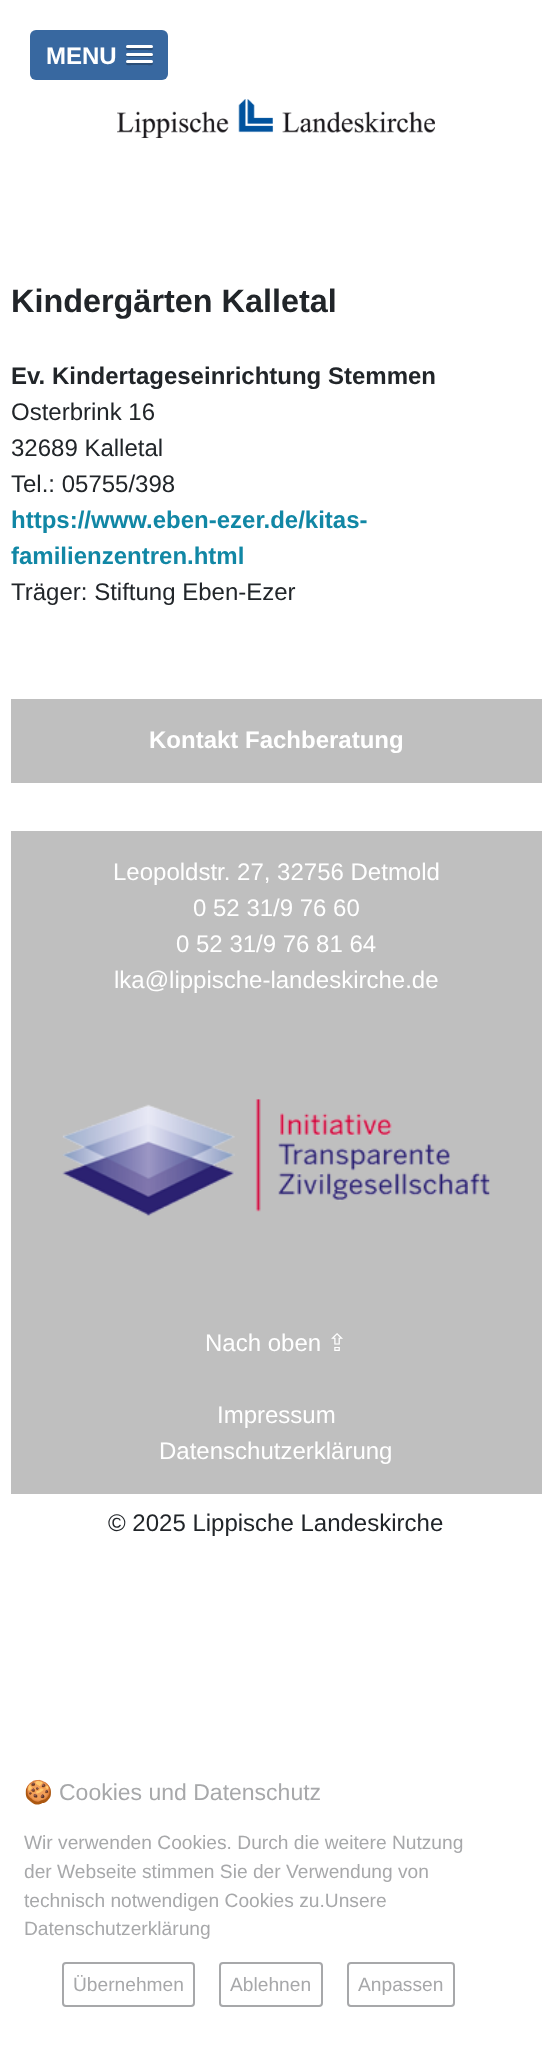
(async () => {
  const canvas = document.querySelector("canvas");
  canvas.width = 551;
  canvas.height = 2066;
  const ctx = canvas.getContext("2d");
  ctx.miterLimit = 4;
  ctx.fontKerning = "normal";
  async function loadImage(src) {
    const img = new Image();
    img.src = src;
    await img.decode();
    return img;
  }
  let path;

  ctx.fillStyle = "#ffffff";
  ctx.fillRect(0, 0, 551, 2066);
  ctx.fillStyle = "#3868a0";
  ctx.beginPath();
  ctx.roundRect(30, 30, 138, 50, 6);
  ctx.fill();
  ctx.fillStyle = "#2a4e78";
  path = new Path2D("M126.5 47.5L126 49C126.5 51 131 50 131.5 50H147.5C148 50 152.5 51 153 49L152.5 47.5L151.5 48H127.5Z");
  ctx.fill(path);
  ctx.fillStyle = "#ffffff";
  ctx.beginPath();
  ctx.roundRect(126, 45, 27, 3, 1.5);
  ctx.fill();
  ctx.fillStyle = "#2a4e78";
  path = new Path2D("M126 54.5C124.5 58 131.5 57 131.5 57H147.5C147.5 57 154.5 58 153 54.5C152.5 55 152 55.5 151.5 55.5H127.5C127 55.5 126.5 55 126 54.5Z");
  ctx.fill(path);
  ctx.fillStyle = "#ffffff";
  ctx.beginPath();
  ctx.roundRect(126, 53, 27, 3, 1.5);
  ctx.fill();
  ctx.fillStyle = "#2a4e78";
  path = new Path2D("M126.5 62.5L126 64C126.5 66 131 65 131.5 65H147.5C148 65 152.5 66 153 64L152.5 62.5L151.5 63H127.5Z");
  ctx.fill(path);
  ctx.fillStyle = "#ffffff";
  ctx.beginPath();
  ctx.roundRect(126, 60, 27, 3, 1.5);
  ctx.fill();
  ctx.drawImage(await loadImage("img/1.png"), 117, 99, 318, 39);
  ctx.fillStyle = "#bfbfbf";
  ctx.fillRect(11, 699, 531, 84);
  ctx.fillRect(11, 831, 531, 663);
  ctx.drawImage(await loadImage("img/2.png"), 62, 1099, 428, 117);
  ctx.beginPath();
  ctx.roundRect(63, 1963, 131, 43, 3);
  ctx.strokeStyle = "#a7a8aa";
  ctx.lineWidth = 2;
  ctx.stroke();
  ctx.beginPath();
  ctx.roundRect(220, 1963, 102, 43, 3);
  ctx.stroke();
  ctx.beginPath();
  ctx.roundRect(348, 1963, 106, 43, 3);
  ctx.stroke();
  ctx.font = "bold 24px Liberation Sans";
  ctx.fillStyle = "#ffffff";
  ctx.fillText("MENU", 46, 64);
  ctx.font = "bold 32.4px Liberation Sans";
  ctx.fillStyle = "#212529";
  ctx.fillText("Kindergärten Kalletal", 11, 312);
  ctx.font = "bold 24px Liberation Sans";
  ctx.fillText("Ev. Kindertageseinrichtung Stemmen", 11, 384);
  ctx.font = "24px Liberation Sans";
  for (const [text, x, y] of [
    ["Osterbrink 16", 11, 420],
    ["32689 Kalletal", 11, 456],
    ["Tel.: 05755/398", 11, 492],
  ]) {
    ctx.fillText(text, x, y);
  }
  ctx.font = "bold 24px Liberation Sans";
  ctx.fillStyle = "#1187a5";
  ctx.fillText("https://www.eben-ezer.de/kitas-", 11, 528);
  ctx.fillText("familienzentren.html", 11, 564);
  ctx.font = "24px Liberation Sans";
  ctx.fillStyle = "#212529";
  ctx.fillText("Träger: Stiftung Eben-Ezer", 11, 600);
  ctx.font = "bold 24px Liberation Sans";
  ctx.fillStyle = "#ffffff";
  ctx.fillText("Kontakt Fachberatung", 149, 748);
  ctx.font = "24px Liberation Sans";
  for (const [text, x, y] of [
    ["Leopoldstr. 27, 32756 Detmold", 113, 880],
    ["0 52 31/9 76 60", 193, 916],
    ["0 52 31/9 76 81 64", 176, 952],
    ["lka@lippische-landeskirche.de", 114, 988],
    ["Nach oben", 205, 1351],
  ]) {
    ctx.fillText(text, x, y);
  }
  ctx.font = "24px DejaVu Sans";
  ctx.fillText("⇪", 327, 1351);
  ctx.font = "24px Liberation Sans";
  ctx.fillText("Impressum", 217, 1423);
  ctx.fillText("Datenschutzerklärung", 159, 1459);
  ctx.fillStyle = "#212529";
  ctx.fillText("© 2025 Lippische Landeskirche", 108, 1531);
  ctx.font = "23px Noto Color Emoji";
  ctx.fillStyle = "#a7a8aa";
  ctx.fillText("🍪", 24, 1800);
  ctx.font = "23px Liberation Sans";
  ctx.fillText("Cookies und Datenschutz", 59, 1800);
  ctx.font = "19.2px Liberation Sans";
  for (const [text, x, y] of [
    ["Wir verwenden Cookies. Durch die weitere Nutzung", 24, 1849],
    ["der Webseite stimmen Sie der Verwendung von", 24, 1878],
    ["technisch notwendigen Cookies zu.Unsere", 24, 1907],
    ["Datenschutzerklärung", 24, 1935],
    ["Übernehmen", 73, 1991],
    ["Ablehnen", 230, 1991],
    ["Anpassen", 358, 1991],
  ]) {
    ctx.fillText(text, x, y);
  }
})();
